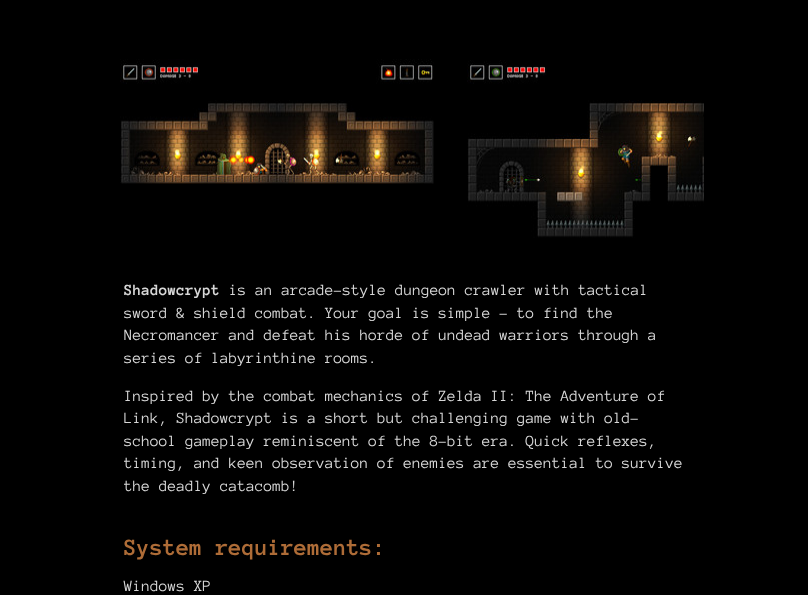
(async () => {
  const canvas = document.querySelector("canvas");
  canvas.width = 808;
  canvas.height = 595;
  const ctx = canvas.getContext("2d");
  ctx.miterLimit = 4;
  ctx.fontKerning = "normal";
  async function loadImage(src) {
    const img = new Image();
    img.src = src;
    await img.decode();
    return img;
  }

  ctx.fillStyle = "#000000";
  ctx.fillRect(0, 0, 808, 595);
  ctx.drawImage(await loadImage("img/1.png"), 120, 59, 314, 125);
  ctx.drawImage(await loadImage("img/2.png"), 467, 60, 237, 178);
  ctx.font = "bold 16px Anonymous Pro";
  ctx.fillStyle = "#d7d7d7";
  ctx.fillText("Shadowcrypt", 124, 295);
  ctx.font = "16px Anonymous Pro";
  for (const [text, x, y] of [
    ["is an arcade-style dungeon crawler with tactical", 229, 295],
    ["sword & shield combat. Your goal is simple - to find the", 124, 318],
    ["Necromancer and defeat his horde of undead warriors through a", 124, 340],
    ["series of labyrinthine rooms.", 124, 363],
    ["Inspired by the combat mechanics of Zelda II: The Adventure of", 124, 401],
    ["Link, Shadowcrypt is a short but challenging game with old-", 124, 423],
    ["school gameplay reminiscent of the 8-bit era. Quick reflexes,", 124, 446],
    ["timing, and keen observation of enemies are essential to survive", 124, 468],
    ["the deadly catacomb!", 124, 491],
  ]) {
    ctx.fillText(text, x, y);
  }
  ctx.font = "bold 24px Anonymous Pro";
  ctx.fillStyle = "#ae6c37";
  ctx.fillText("System requirements:", 124, 555);
  ctx.font = "16px Anonymous Pro";
  ctx.fillStyle = "#d7d7d7";
  ctx.fillText("Windows XP", 124, 591);
})();
